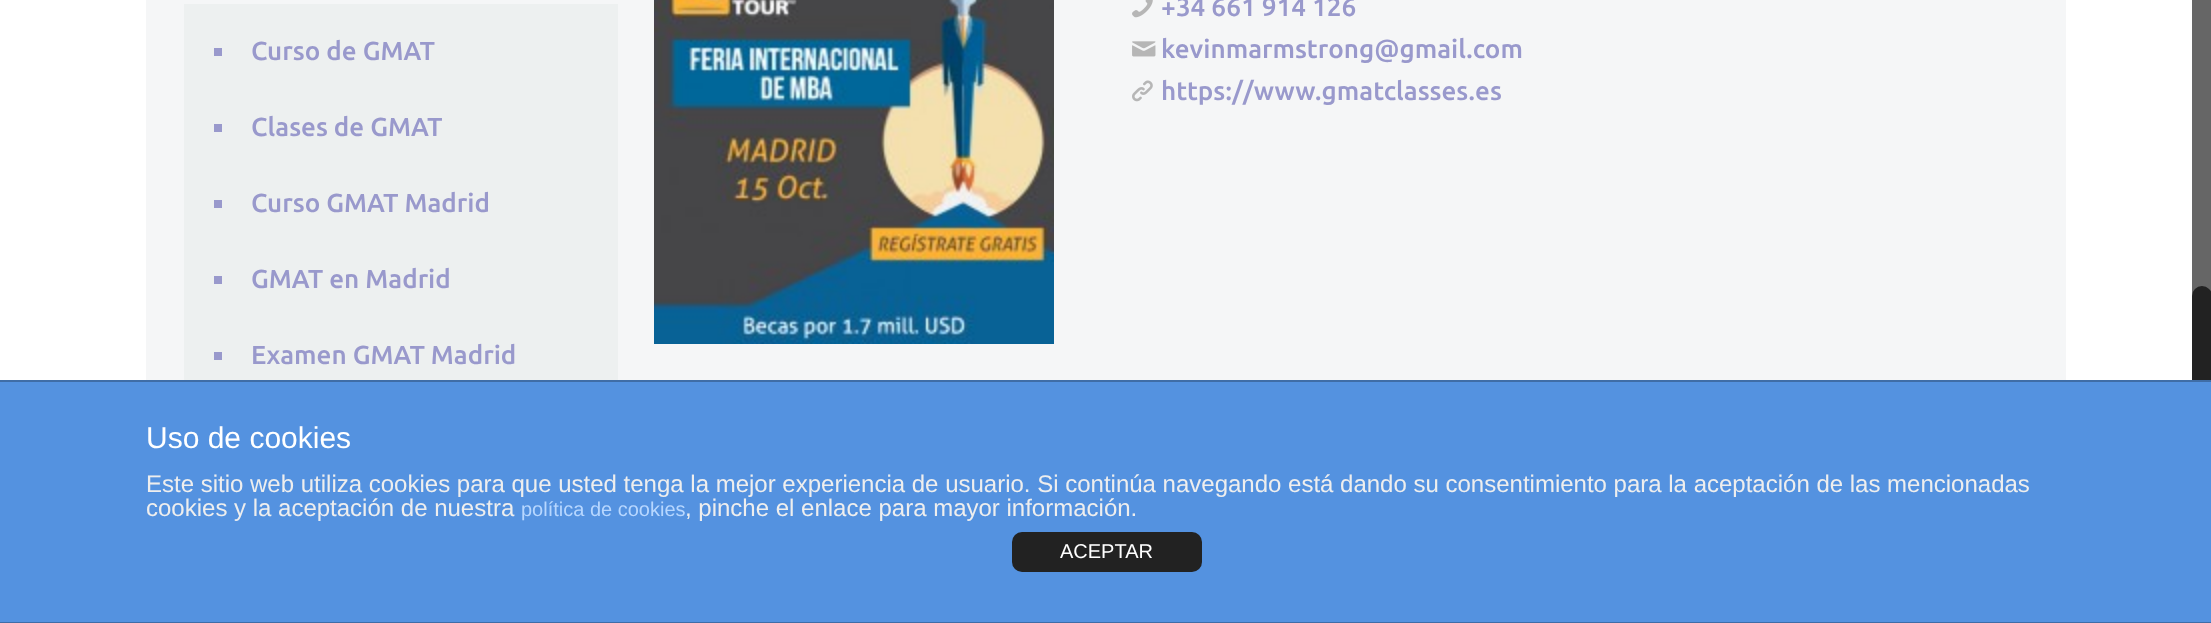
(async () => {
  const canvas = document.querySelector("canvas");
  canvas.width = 2211;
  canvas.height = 623;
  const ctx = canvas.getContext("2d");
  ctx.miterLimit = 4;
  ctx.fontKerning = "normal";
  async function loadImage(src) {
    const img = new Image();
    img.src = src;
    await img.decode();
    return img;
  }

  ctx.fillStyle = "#ffffff";
  ctx.fillRect(0, 0, 2211, 623);
  for (const [x, y, w, h, color] of [
    [146, 0, 1920, 380, "#f5f6f7"],
    [184, 4, 434, 376, "#edf0f0"],
    [214, 48, 8, 8, "#9999cc"],
    [214, 124, 8, 8, "#9999cc"],
    [214, 200, 8, 8, "#9999cc"],
    [214, 276, 8, 8, "#9999cc"],
    [214, 352, 8, 8, "#9999cc"],
  ]) {
    ctx.fillStyle = color;
    ctx.fillRect(x, y, w, h);
  }
  ctx.drawImage(await loadImage("img/1.png"), 654, 0, 400, 344);
  ctx.drawImage(await loadImage("img/2.png"), 1132, 0, 21, 18);
  ctx.drawImage(await loadImage("img/3.png"), 1132, 41, 24, 16);
  ctx.drawImage(await loadImage("img/4.png"), 1132, 80, 21, 22);
  ctx.fillStyle = "#666666";
  ctx.fillRect(2192, 0, 19, 296);
  ctx.fillStyle = "#222222";
  ctx.beginPath();
  ctx.roundRect(2192, 286, 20, 168, 10);
  ctx.fill();
  for (const [x, y, w, h, color] of [
    [0, 382, 2211, 240, "#5492e0"],
    [0, 380, 2211, 2, "#3f6da7"],
    [0, 622, 2211, 1, "#3f6da7"],
  ]) {
    ctx.fillStyle = color;
    ctx.fillRect(x, y, w, h);
  }
  ctx.fillStyle = "#222222";
  ctx.beginPath();
  ctx.roundRect(1012, 532, 190, 40, 10);
  ctx.fill();
  ctx.font = "500 26px Ubuntu";
  ctx.fillStyle = "#9999cc";
  for (const [text, x, y] of [
    ["Curso de GMAT", 251, 60],
    ["Clases de GMAT", 251, 136],
    ["Curso GMAT Madrid", 251, 212],
    ["GMAT en Madrid", 251, 288],
    ["Examen GMAT Madrid", 251, 364],
    ["+34 661 914 126", 1161, 16],
    ["kevinmarmstrong@gmail.com", 1161, 58],
    ["https://www.gmatclasses.es", 1161, 100],
  ]) {
    ctx.fillText(text, x, y);
  }
  ctx.font = "30px Liberation Sans";
  ctx.fillStyle = "#ffffff";
  ctx.fillText("Uso de cookies", 146, 448);
  ctx.font = "24px Liberation Sans";
  ctx.fillStyle = "#eeeeee";
  ctx.fillText("Este sitio web utiliza cookies para que usted tenga la mejor experiencia de usuario. Si continúa navegando está dando su consentimiento para la aceptación de las mencionadas", 146, 492);
  ctx.fillText("cookies y la aceptación de nuestra", 146, 516);
  ctx.font = "20px Liberation Sans";
  ctx.fillStyle = "#b7d7ff";
  ctx.fillText("política de cookies", 521, 516);
  ctx.font = "24px Liberation Sans";
  ctx.fillStyle = "#eeeeee";
  ctx.fillText(", pinche el enlace para mayor información.", 685, 516);
  ctx.font = "20px Liberation Sans";
  ctx.fillStyle = "#ffffff";
  ctx.fillText("ACEPTAR", 1060, 558);
})();
